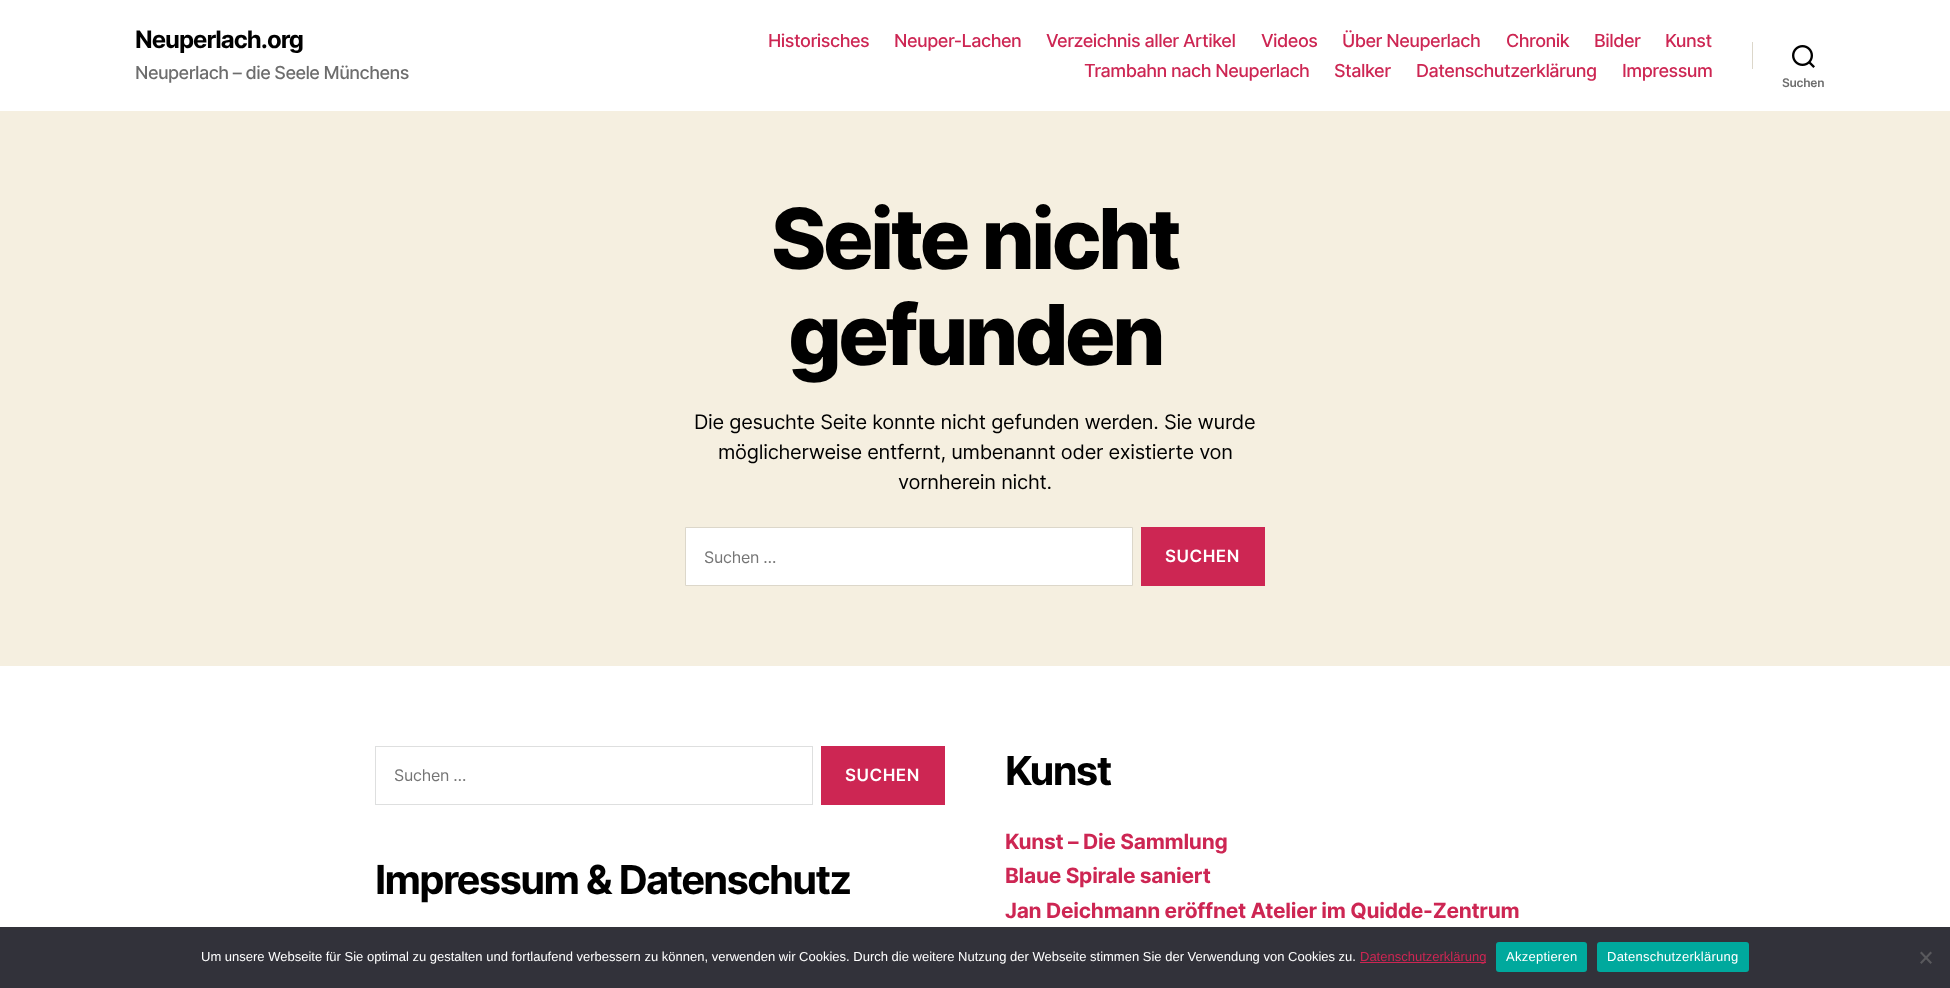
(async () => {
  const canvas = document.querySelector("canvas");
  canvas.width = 1950;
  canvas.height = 988;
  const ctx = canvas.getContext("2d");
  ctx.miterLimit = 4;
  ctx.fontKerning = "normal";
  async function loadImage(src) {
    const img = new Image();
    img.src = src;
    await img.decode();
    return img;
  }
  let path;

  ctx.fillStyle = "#f5efe0";
  ctx.fillRect(0, 0, 1950, 988);
  ctx.fillStyle = "#ffffff";
  ctx.fillRect(0, 0, 1950, 111);
  ctx.fillStyle = "#dcd7ca";
  ctx.fillRect(1752, 42, 1, 27);
  ctx.drawImage(await loadImage("img/1.png"), 1792, 45, 23, 23);
  ctx.fillStyle = "#ffffff";
  ctx.beginPath();
  ctx.rect(685.5, 527.5, 447, 58);
  ctx.fill();
  ctx.strokeStyle = "#dcd7ca";
  ctx.stroke();
  ctx.fillStyle = "#cd2653";
  ctx.fillRect(1141, 527, 124, 59);
  ctx.fillStyle = "#ffffff";
  ctx.fillRect(0, 666, 1950, 261);
  ctx.strokeStyle = "#dedfdf";
  ctx.strokeRect(375.5, 746.5, 437, 58);
  for (const [x, y, w, h, color] of [
    [821, 746, 124, 59, "#cd2653"],
    [0, 927, 1950, 61, "#32323a"],
    [1360, 962, 126, 1, "#cd2653"],
  ]) {
    ctx.fillStyle = color;
    ctx.fillRect(x, y, w, h);
  }
  ctx.fillStyle = "#00a99d";
  ctx.beginPath();
  ctx.roundRect(1496, 942, 91, 30, 3);
  ctx.fill();
  ctx.beginPath();
  ctx.roundRect(1597, 942, 152, 30, 3);
  ctx.fill();
  ctx.fillStyle = "#59595d";
  path = new Path2D("M1930.5 951.5L1932 953L1921.5 964L1920 962.5Z");
  ctx.fill(path);
  path = new Path2D("M1920 953L1921.5 951.5L1932 962.5L1930.5 964Z");
  ctx.fill(path);
  ctx.letterSpacing = "-1px";
  ctx.font = "bold 24px Inter";
  ctx.fillStyle = "#000000";
  ctx.fillText("Neuperlach.org", 135, 48);
  ctx.letterSpacing = "-0.55px";
  ctx.font = "500 18px Inter";
  ctx.fillStyle = "#6d6d6d";
  ctx.fillText("Neuperlach – die Seele Münchens", 135, 79);
  ctx.letterSpacing = "-0.5px";
  ctx.fillStyle = "#cd2653";
  for (const [text, x, y] of [
    ["Historisches", 768, 47],
    ["Neuper-Lachen", 894, 47],
    ["Verzeichnis aller Artikel", 1046, 47],
    ["Videos", 1261, 47],
    ["Über Neuperlach", 1342, 47],
    ["Chronik", 1506, 47],
    ["Bilder", 1594, 47],
    ["Kunst", 1665, 47],
    ["Trambahn nach Neuperlach", 1084, 77],
    ["Stalker", 1334, 77],
    ["Datenschutzerklärung", 1416, 77],
    ["Impressum", 1622, 77],
  ]) {
    ctx.fillText(text, x, y);
  }
  ctx.letterSpacing = "-0.27px";
  ctx.font = "600 12px Inter";
  ctx.fillStyle = "#6d6d6d";
  ctx.fillText("Suchen", 1782, 87);
  ctx.letterSpacing = "-3.5px";
  ctx.font = "800 84px Inter";
  ctx.fillStyle = "#000000";
  ctx.fillText("Seite nicht", 771, 269);
  ctx.fillText("gefunden", 788, 365);
  ctx.letterSpacing = "-0.27px";
  ctx.font = "20px Inter";
  for (const [text, x, y] of [
    ["Die gesuchte Seite konnte nicht gefunden werden. Sie wurde", 694, 429],
    ["möglicherweise entfernt, umbenannt oder existierte von", 718, 459],
    ["vornherein nicht.", 898, 489],
  ]) {
    ctx.fillText(text, x, y);
  }
  ctx.letterSpacing = "-0.25px";
  ctx.font = "16px Inter";
  ctx.fillStyle = "#757575";
  ctx.fillText("Suchen …", 704, 563);
  ctx.letterSpacing = "0.5px";
  ctx.font = "600 17px Inter";
  ctx.fillStyle = "#ffffff";
  ctx.fillText("SUCHEN", 1165, 562);
  ctx.letterSpacing = "-0.25px";
  ctx.font = "16px Inter";
  ctx.fillStyle = "#757575";
  ctx.fillText("Suchen …", 394, 781);
  ctx.letterSpacing = "0.5px";
  ctx.font = "600 17px Inter";
  ctx.fillStyle = "#ffffff";
  ctx.fillText("SUCHEN", 845, 781);
  ctx.letterSpacing = "-1.7px";
  ctx.font = "bold 40px Inter";
  ctx.fillStyle = "#000000";
  ctx.fillText("Impressum & Datenschutz", 375, 894);
  ctx.fillText("Kunst", 1005, 785);
  ctx.letterSpacing = "-0.27px";
  ctx.font = "bold 21px Inter";
  ctx.fillStyle = "#cd2653";
  for (const [text, x, y] of [
    ["Kunst – Die Sammlung", 1005, 849],
    ["Blaue Spirale saniert", 1005, 883],
    ["Jan Deichmann eröffnet Atelier im Quidde-Zentrum", 1005, 918],
  ]) {
    ctx.fillText(text, x, y);
  }
  ctx.letterSpacing = "0px";
  ctx.font = "13px Liberation Sans";
  ctx.fillStyle = "#ffffff";
  ctx.fillText("Um unsere Webseite für Sie optimal zu gestalten und fortlaufend verbessern zu können, verwenden wir Cookies. Durch die weitere Nutzung der Webseite stimmen Sie der Verwendung von Cookies zu.", 201, 961);
  ctx.fillStyle = "#cd2653";
  ctx.fillText("Datenschutzerklärung", 1360, 961);
  ctx.letterSpacing = "0.25px";
  ctx.fillStyle = "#ffffff";
  ctx.fillText("Akzeptieren", 1506, 961);
  ctx.fillText("Datenschutzerklärung", 1607, 961);
})();
